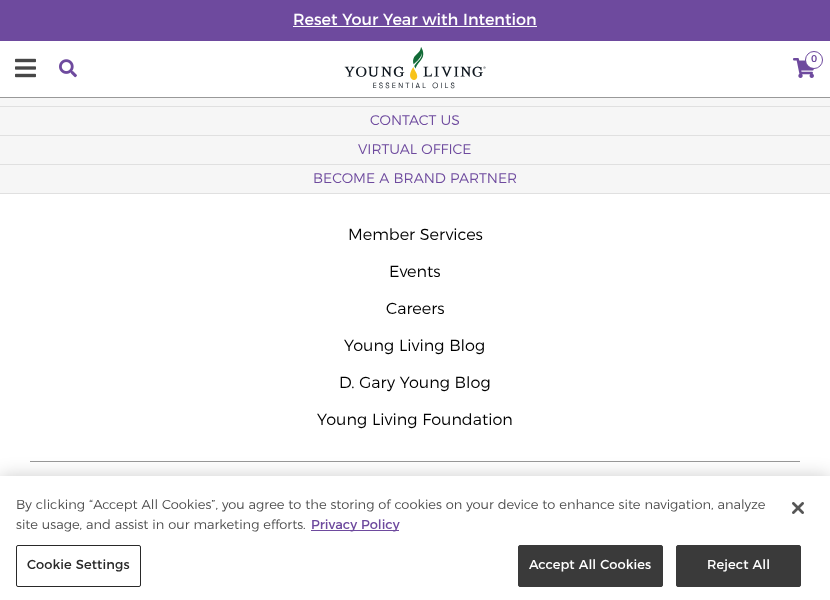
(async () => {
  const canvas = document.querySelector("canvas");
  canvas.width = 830;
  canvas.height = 600;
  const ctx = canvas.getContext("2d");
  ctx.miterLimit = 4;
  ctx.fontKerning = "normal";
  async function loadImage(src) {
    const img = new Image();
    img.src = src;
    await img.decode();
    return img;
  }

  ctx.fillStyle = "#ffffff";
  ctx.fillRect(0, 0, 830, 600);
  for (const [x, y, w, h, color] of [
    [0, 0, 830, 41, "#6e4a9e"],
    [293, 26, 244, 1, "#ffffff"],
    [0, 97, 830, 1, "#999999"],
  ]) {
    ctx.fillStyle = color;
    ctx.fillRect(x, y, w, h);
  }
  ctx.drawImage(await loadImage("img/1.png"), 15, 58, 21, 20);
  ctx.drawImage(await loadImage("img/2.png"), 59, 59, 18, 19);
  ctx.drawImage(await loadImage("img/3.png"), 344, 47, 142, 42);
  ctx.drawImage(await loadImage("img/4.png"), 793, 58, 21, 20);
  ctx.fillStyle = "#ffffff";
  ctx.beginPath();
  ctx.arc(814, 60, 8.5, 0, Math.PI * 2);
  ctx.fill();
  ctx.strokeStyle = "#6e4a9e";
  ctx.stroke();
  for (const [x, y, w, h, color] of [
    [0, 98, 830, 95, "#f6f6f6"],
    [0, 106, 830, 1, "#e0e0e0"],
    [0, 135, 830, 1, "#e0e0e0"],
    [0, 164, 830, 1, "#e0e0e0"],
    [0, 193, 830, 1, "#e0e0e0"],
    [30, 461, 770, 1, "#999999"],
  ]) {
    ctx.fillStyle = color;
    ctx.fillRect(x, y, w, h);
  }
  ctx.fillStyle = "rgba(0, 0, 0, 0.2)";
  ctx.filter = "blur(9px)";
  ctx.beginPath();
  ctx.rect(0, 476, 830, 124);
  ctx.fill();
  ctx.filter = "none";
  ctx.fillStyle = "#ffffff";
  ctx.fillRect(0, 476, 830, 124);
  ctx.fillStyle = "#6e4a9e";
  ctx.fillRect(311, 530, 88, 1);
  ctx.beginPath();
  ctx.roundRect(16.5, 545.5, 124, 41, 1.5);
  ctx.strokeStyle = "#292929";
  ctx.stroke();
  ctx.fillStyle = "#3a3a3a";
  ctx.beginPath();
  ctx.roundRect(518.5, 545.5, 144, 41, 1.5);
  ctx.fill();
  ctx.strokeStyle = "#3a3a3a";
  ctx.stroke();
  ctx.beginPath();
  ctx.roundRect(676.5, 545.5, 124, 41, 1.5);
  ctx.fill();
  ctx.stroke();
  ctx.drawImage(await loadImage("img/5.png"), 792, 502, 12, 12);
  ctx.font = "16px Montserrat";
  ctx.fillStyle = "#ffffff";
  ctx.fillText("Reset Your Year with Intention", 293, 25);
  ctx.font = "500 10px Montserrat";
  ctx.fillStyle = "#6e4a9e";
  ctx.fillText("0", 811, 62);
  ctx.font = "300 14px Montserrat";
  for (const [text, x, y] of [
    ["CONTACT US", 370, 125],
    ["VIRTUAL OFFICE", 358, 154],
    ["BECOME A BRAND PARTNER", 313, 183],
  ]) {
    ctx.fillText(text, x, y);
  }
  ctx.font = "300 16px Montserrat";
  ctx.fillStyle = "#000000";
  for (const [text, x, y] of [
    ["Member Services", 348, 240],
    ["Events", 389, 277],
    ["Careers", 386, 314],
    ["Young Living Blog", 344, 351],
    ["D. Gary Young Blog", 339, 388],
    ["Young Living Foundation", 317, 425],
  ]) {
    ctx.fillText(text, x, y);
  }
  ctx.font = "300 13px Montserrat";
  ctx.fillStyle = "#4d4d4d";
  ctx.fillText("By clicking “Accept All Cookies”, you agree to the storing of cookies on your device to enhance site navigation, analyze", 16, 509);
  ctx.fillText("site usage, and assist in our marketing efforts.", 16, 529);
  ctx.font = "13px Montserrat";
  ctx.fillStyle = "#6e4a9e";
  ctx.fillText("Privacy Policy", 311, 529);
  ctx.letterSpacing = "0.1px";
  ctx.fillStyle = "#292929";
  ctx.fillText("Cookie Settings", 27, 569);
  ctx.fillStyle = "#ffffff";
  ctx.fillText("Accept All Cookies", 529, 569);
  ctx.fillText("Reject All", 707, 569);
})();
